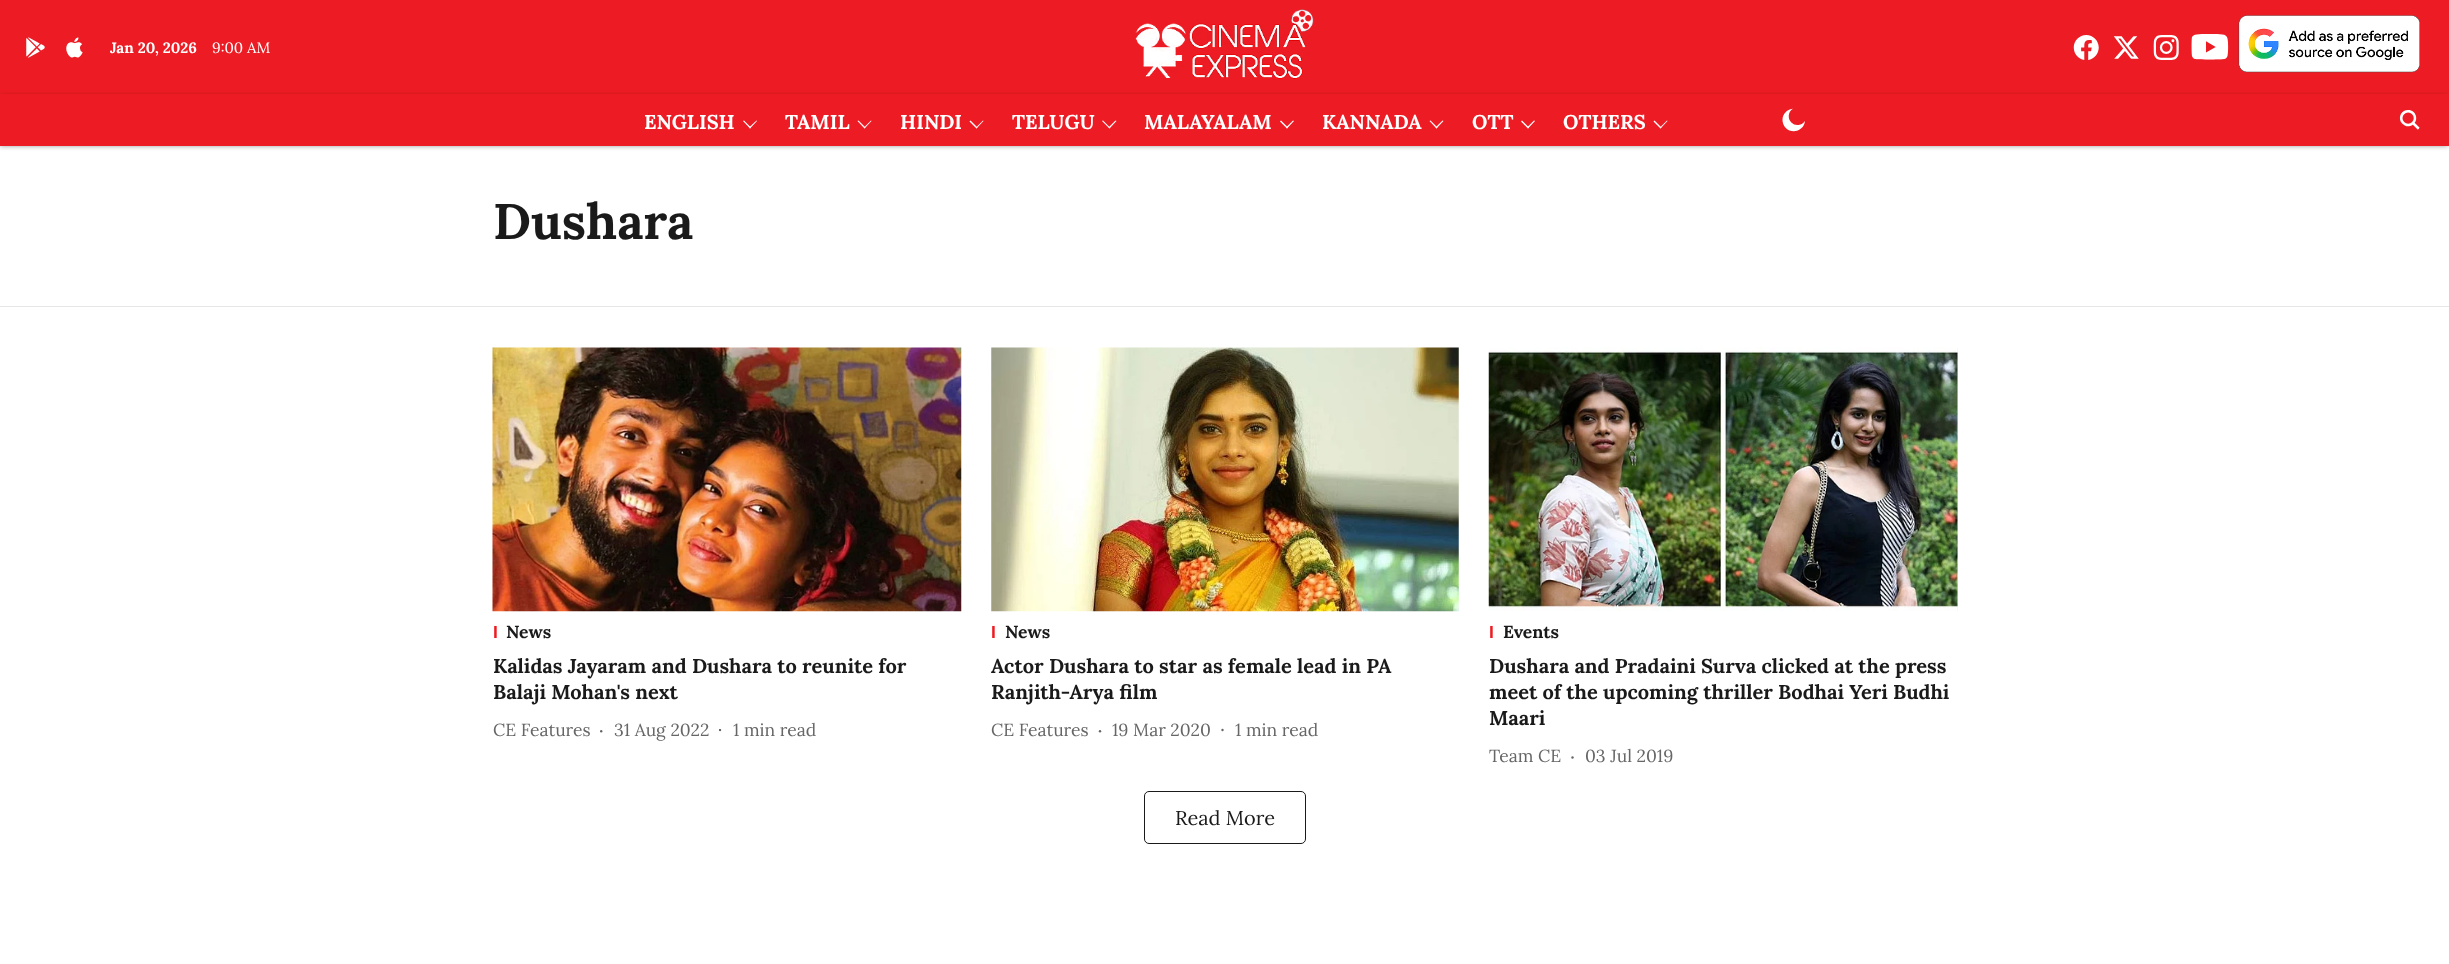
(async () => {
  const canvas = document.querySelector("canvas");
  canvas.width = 2449;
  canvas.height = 964;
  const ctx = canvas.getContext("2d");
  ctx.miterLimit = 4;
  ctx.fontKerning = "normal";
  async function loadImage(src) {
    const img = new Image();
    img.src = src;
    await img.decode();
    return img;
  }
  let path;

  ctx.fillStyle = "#ffffff";
  ctx.fillRect(0, 0, 2449, 964);
  ctx.fillStyle = "#ed1c24";
  ctx.fillRect(0, 0, 2449, 94);
  ctx.drawImage(await loadImage("img/1.png"), 26, 37, 19, 21);
  ctx.drawImage(await loadImage("img/2.png"), 66, 37, 17, 21);
  ctx.drawImage(await loadImage("img/3.png"), 1135, 9, 179, 70);
  ctx.drawImage(await loadImage("img/4.png"), 2073, 35, 26, 25);
  ctx.drawImage(await loadImage("img/5.png"), 2113, 36, 26, 23);
  ctx.drawImage(await loadImage("img/6.png"), 2153, 35, 26, 25);
  ctx.drawImage(await loadImage("img/7.png"), 2191, 34, 38, 26);
  ctx.drawImage(await loadImage("img/8.png"), 2238, 15, 182, 58);
  ctx.fillStyle = "rgba(0, 0, 0, 0.39)";
  ctx.filter = "blur(2.5px)";
  ctx.beginPath();
  ctx.rect(0, 96, 2448, 50);
  ctx.fill();
  ctx.filter = "none";
  ctx.fillStyle = "#ed1c24";
  ctx.fillRect(0, 94, 2449, 52);
  ctx.fillStyle = "#ffffff";
  path = new Path2D("M756.5 120.5L757 121L750 128.5L749 127.5Z");
  ctx.fill(path);
  path = new Path2D("M744 120.5L751 127.5L750 128.5L743 121Z");
  ctx.fill(path);
  path = new Path2D("M871 120.5L871.5 121L864.5 128.5L864 127.5Z");
  ctx.fill(path);
  path = new Path2D("M858.5 120.5L865.5 127.5L864.5 128.5L857.5 121Z");
  ctx.fill(path);
  path = new Path2D("M983 120.5L983.5 121L976.5 128.5L976 127.5Z");
  ctx.fill(path);
  path = new Path2D("M970.5 120.5L977.5 127.5L976.5 128.5L969.5 121.5Z");
  ctx.fill(path);
  path = new Path2D("M1115.5 120.5L1116.5 121L1109.5 128.5L1108.5 127.5Z");
  ctx.fill(path);
  path = new Path2D("M1103 120.5L1110 127.5L1109.5 128.5L1102 121Z");
  ctx.fill(path);
  path = new Path2D("M1293 120.5L1294 121L1287 128.5L1286 127.5Z");
  ctx.fill(path);
  path = new Path2D("M1281 120.5L1288 127.5L1287 128.5L1280 121.5Z");
  ctx.fill(path);
  path = new Path2D("M1442.5 120.5L1443.5 121L1436.5 128.5L1435.5 127.5Z");
  ctx.fill(path);
  path = new Path2D("M1430.5 120.5L1437.5 127.5L1436.5 128.5L1429.5 121Z");
  ctx.fill(path);
  path = new Path2D("M1534 120.5L1535 121L1528 128.5L1527 127.5Z");
  ctx.fill(path);
  path = new Path2D("M1522 120.5L1529 127.5L1528 128.5L1521 121.5Z");
  ctx.fill(path);
  path = new Path2D("M1667 120.5L1667.5 121L1660.5 128.5L1660 127.5Z");
  ctx.fill(path);
  path = new Path2D("M1654.5 120.5L1661.5 127.5L1660.5 128.5L1653.5 121.5Z");
  ctx.fill(path);
  ctx.drawImage(await loadImage("img/9.png"), 1782, 108, 23, 24);
  ctx.drawImage(await loadImage("img/10.png"), 2399, 110, 21, 20);
  ctx.fillStyle = "#e6e6e6";
  ctx.fillRect(0, 306, 2449, 1);
  ctx.drawImage(await loadImage("img/11.png"), 492, 347, 470, 265);
  ctx.fillStyle = "#666666";
  ctx.beginPath();
  ctx.arc(601.2, 731.2, 1.2, 0, Math.PI * 2);
  ctx.fill();
  ctx.save();
  ctx.beginPath();
  ctx.rect(719, 729, 4, 4);
  ctx.clip();
  ctx.beginPath();
  ctx.arc(720, 730, 1.2, 0, Math.PI * 2);
  ctx.fill();
  ctx.restore();
  ctx.drawImage(await loadImage("img/12.png"), 991, 347, 468, 265);
  ctx.beginPath();
  ctx.arc(1100, 731.2, 1.2, 0, Math.PI * 2);
  ctx.fill();
  ctx.beginPath();
  ctx.arc(1222.5, 730, 1.2, 0, Math.PI * 2);
  ctx.fill();
  ctx.fillStyle = "#f0f0f0";
  ctx.fillRect(1957, 348, 1, 263);
  ctx.drawImage(await loadImage("img/13.png"), 1488, 347, 470, 264);
  ctx.fillStyle = "#666666";
  ctx.beginPath();
  ctx.arc(1572.5, 757.5, 1.2, 0, Math.PI * 2);
  ctx.fill();
  ctx.beginPath();
  ctx.roundRect(1144.5, 791.5, 161, 52, 4.5);
  ctx.strokeStyle = "#1a1a1a";
  ctx.stroke();
  ctx.font = "bold 15px Lora";
  ctx.fillStyle = "#ffffff";
  ctx.fillText("Jan 20, 2026", 110, 53);
  ctx.font = "15px Lora";
  ctx.fillText("9:00 AM", 212, 53);
  ctx.font = "bold 20px Lora";
  for (const [text, x, y] of [
    ["ENGLISH", 644, 129],
    ["TAMIL", 785, 129],
    ["HINDI", 900, 129],
    ["TELUGU", 1012, 129],
    ["MALAYALAM", 1144, 129],
    ["KANNADA", 1322, 129],
    ["OTT", 1472, 129],
    ["OTHERS", 1563, 129],
  ]) {
    ctx.fillText(text, x, y);
  }
  ctx.font = "bold 50px Lora";
  ctx.fillStyle = "#1a1a1a";
  ctx.fillText("Dushara", 493, 239);
  ctx.font = "bold 17.5px Liberation Sans";
  ctx.fillStyle = "#ed1c24";
  ctx.fillText("I", 493, 638);
  ctx.font = "bold 17.5px Lora";
  ctx.fillStyle = "#1a1a1a";
  ctx.fillText("News", 506, 638);
  ctx.font = "bold 20px Lora";
  ctx.fillText("Kalidas Jayaram and Dushara to reunite for", 493, 673);
  ctx.fillText("Balaji Mohan's next", 493, 699);
  ctx.font = "17.5px Lora";
  ctx.fillStyle = "#666666";
  for (const [text, x, y] of [
    ["CE Features", 493, 736],
    ["31 Aug 2022", 614, 736],
    ["1 min read", 733, 736],
  ]) {
    ctx.fillText(text, x, y);
  }
  ctx.font = "bold 17.5px Liberation Sans";
  ctx.fillStyle = "#ed1c24";
  ctx.fillText("I", 991, 638);
  ctx.font = "bold 17.5px Lora";
  ctx.fillStyle = "#1a1a1a";
  ctx.fillText("News", 1005, 638);
  ctx.font = "bold 20px Lora";
  ctx.fillText("Actor Dushara to star as female lead in PA", 991, 673);
  ctx.fillText("Ranjith-Arya film", 991, 699);
  ctx.font = "17.5px Lora";
  ctx.fillStyle = "#666666";
  for (const [text, x, y] of [
    ["CE Features", 991, 736],
    ["19 Mar 2020", 1112, 736],
    ["1 min read", 1235, 736],
  ]) {
    ctx.fillText(text, x, y);
  }
  ctx.font = "bold 17.5px Liberation Sans";
  ctx.fillStyle = "#ed1c24";
  ctx.fillText("I", 1489, 638);
  ctx.font = "bold 17.5px Lora";
  ctx.fillStyle = "#1a1a1a";
  ctx.fillText("Events", 1503, 638);
  ctx.font = "bold 20px Lora";
  for (const [text, x, y] of [
    ["Dushara and Pradaini Surva clicked at the press", 1489, 673],
    ["meet of the upcoming thriller Bodhai Yeri Budhi", 1489, 699],
    ["Maari", 1489, 725],
  ]) {
    ctx.fillText(text, x, y);
  }
  ctx.font = "17.5px Lora";
  ctx.fillStyle = "#666666";
  ctx.fillText("Team CE", 1489, 762);
  ctx.fillText("03 Jul 2019", 1585, 762);
  ctx.font = "20px Lora";
  ctx.fillStyle = "#1a1a1a";
  ctx.fillText("Read More", 1175, 825);
})();
